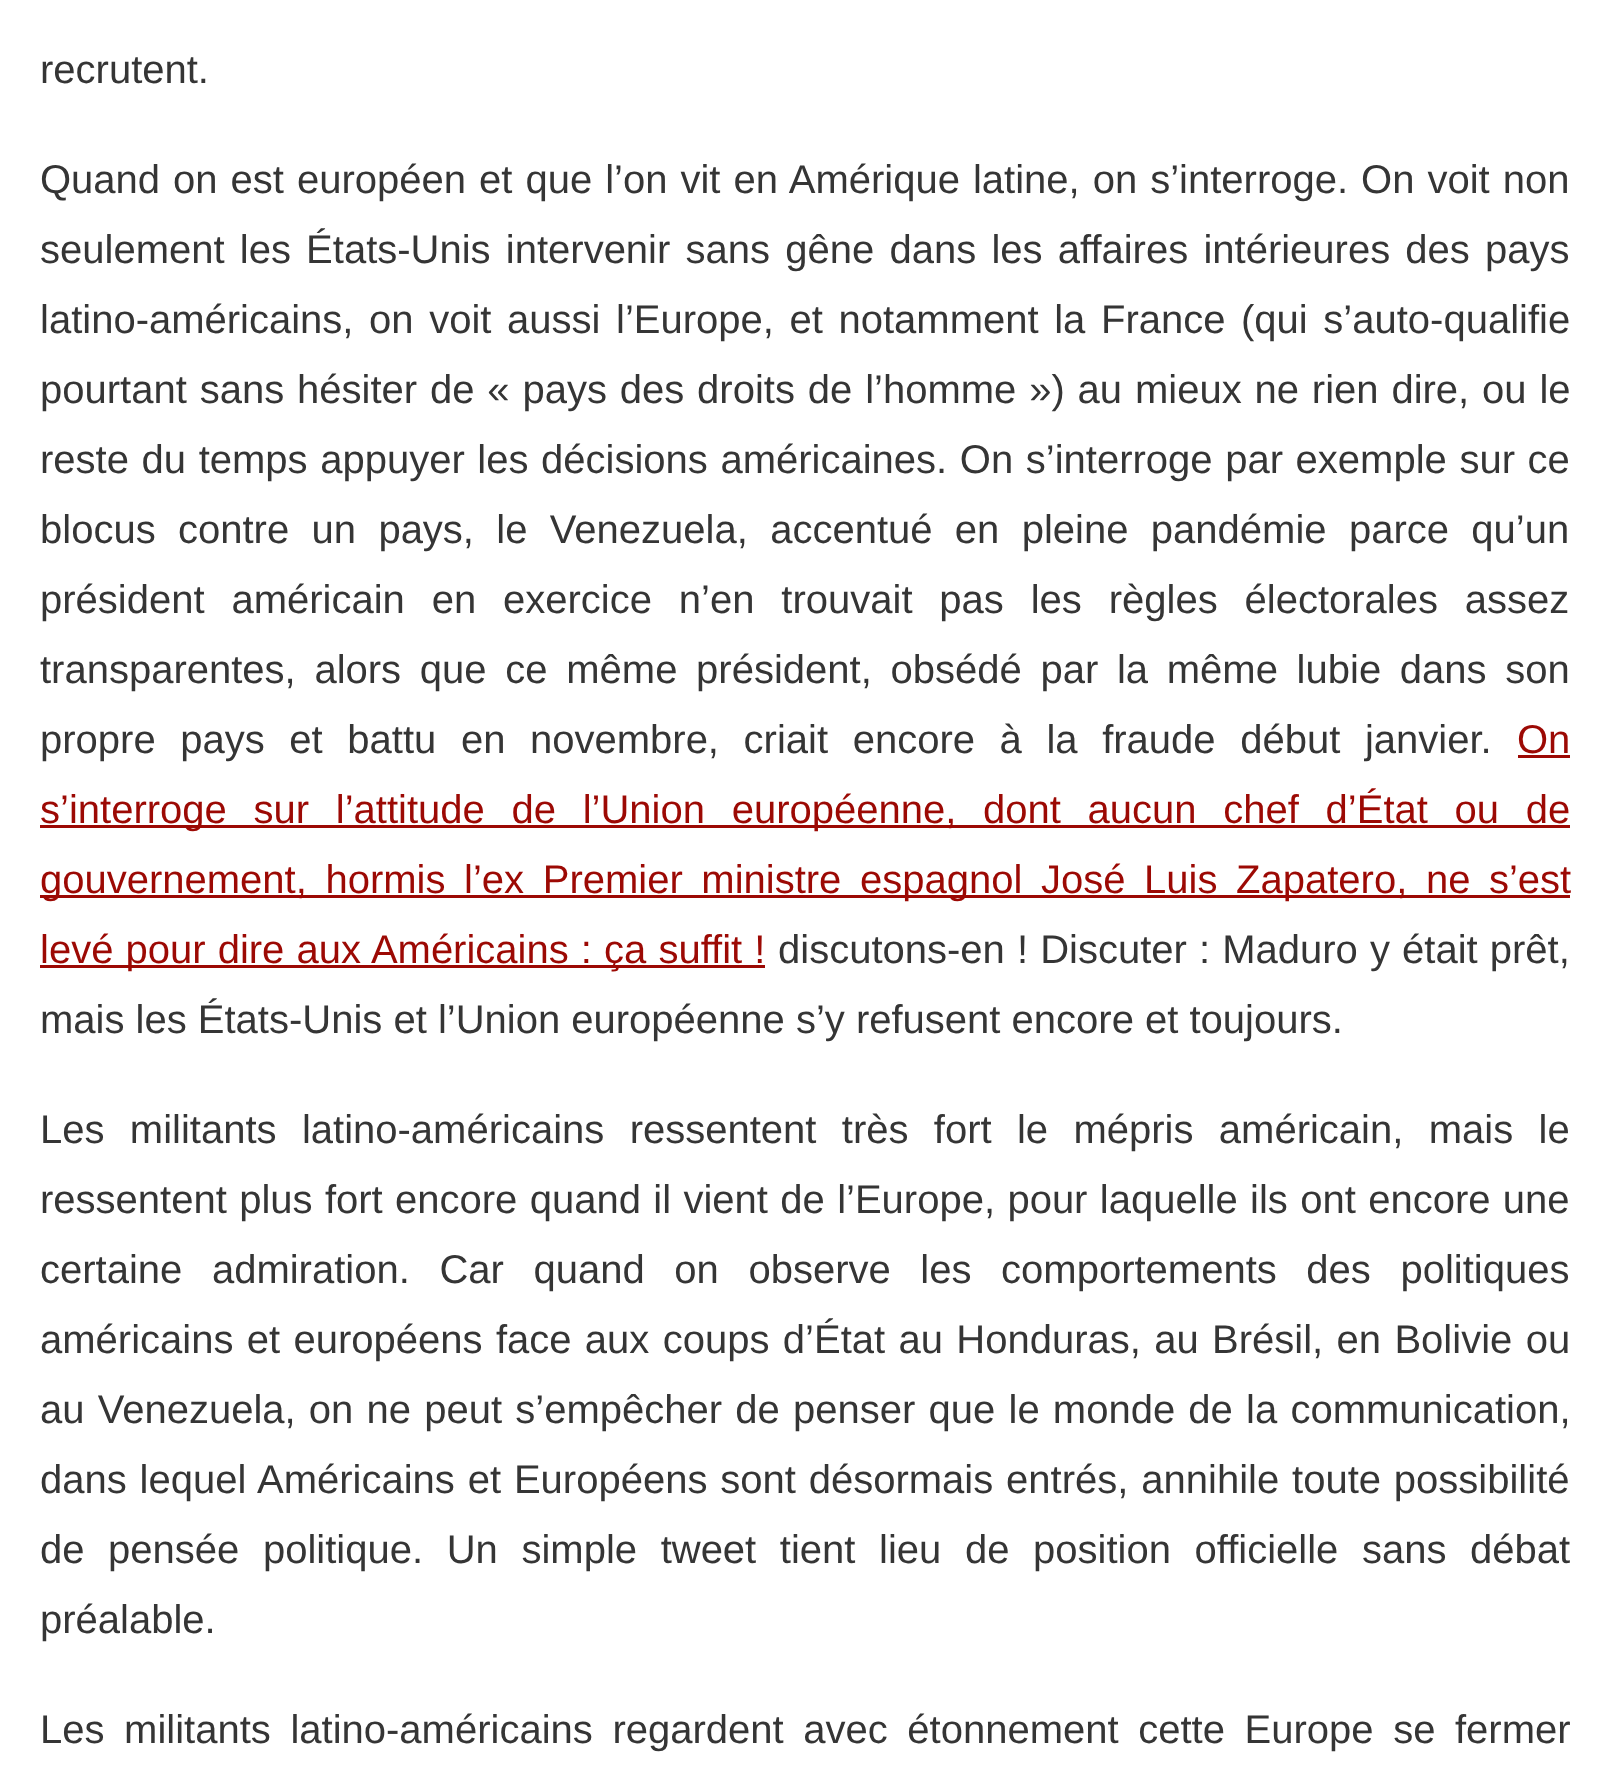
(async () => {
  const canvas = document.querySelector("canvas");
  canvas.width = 1610;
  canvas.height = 1768;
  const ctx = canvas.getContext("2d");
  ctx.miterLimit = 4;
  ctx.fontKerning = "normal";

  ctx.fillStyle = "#ffffff";
  ctx.fillRect(0, 0, 1610, 1768);
  for (const [x, y, w, h, color] of [
    [1518, 755, 52, 3, "#9c0904"],
    [40, 825, 1530, 3, "#9c0904"],
    [40, 895, 1530, 3, "#9c0904"],
    [40, 965, 725, 3, "#9c0904"],
  ]) {
    ctx.fillStyle = color;
    ctx.fillRect(x, y, w, h);
  }
  ctx.font = "40px Liberation Sans";
  ctx.fillStyle = "#353535";
  ctx.fillText("recrutent.", 40, 83);
  ctx.wordSpacing = "1.9px";
  ctx.fillText("Quand on est européen et que l’on vit en Amérique latine, on s’interroge. On voit non", 40, 193);
  ctx.wordSpacing = "4.1px";
  ctx.fillText("seulement les États-Unis intervenir sans gêne dans les affaires intérieures des pays", 40, 263);
  ctx.wordSpacing = "4.5px";
  ctx.fillText("latino-américains, on voit aussi l’Europe, et notamment la France (qui s’auto-qualifie", 40, 333);
  ctx.wordSpacing = "1.75px";
  ctx.fillText("pourtant sans hésiter de « pays des droits de l’homme ») au mieux ne rien dire, ou le", 40, 403);
  ctx.wordSpacing = "1.5px";
  ctx.fillText("reste du temps appuyer les décisions américaines. On s’interroge par exemple sur ce", 40, 473);
  ctx.wordSpacing = "11.25px";
  ctx.fillText("blocus contre un pays, le Venezuela, accentué en pleine pandémie parce qu’un", 40, 543);
  ctx.wordSpacing = "15.75px";
  ctx.fillText("président américain en exercice n’en trouvait pas les règles électorales assez", 40, 613);
  ctx.wordSpacing = "7.6px";
  ctx.fillText("transparentes, alors que ce même président, obsédé par la même lubie dans son", 40, 683);
  ctx.wordSpacing = "13.5px";
  ctx.fillText("propre pays et battu en novembre, criait encore à la fraude début janvier.", 40, 753);
  ctx.wordSpacing = "0px";
  ctx.fillStyle = "#9c0904";
  ctx.fillText("On", 1517, 753);
  ctx.wordSpacing = "15.6px";
  ctx.fillText("s’interroge sur l’attitude de l’Union européenne, dont aucun chef d’État ou de", 40, 823);
  ctx.wordSpacing = "7.5px";
  ctx.fillText("gouvernement, hormis l’ex Premier ministre espagnol José Luis Zapatero, ne s’est", 40, 893);
  ctx.wordSpacing = "1px";
  ctx.fillText("levé pour dire aux Américains : ça suffit !", 40, 963);
  ctx.fillStyle = "#353535";
  ctx.fillText("discutons-en ! Discuter : Maduro y était prêt,", 778, 963);
  ctx.wordSpacing = "0px";
  ctx.fillText("mais les États-Unis et l’Union européenne s’y refusent encore et toujours.", 40, 1033);
  ctx.wordSpacing = "14.25px";
  ctx.fillText("Les militants latino-américains ressentent très fort le mépris américain, mais le", 40, 1143);
  ctx.wordSpacing = "1.25px";
  ctx.fillText("ressentent plus fort encore quand il vient de l’Europe, pour laquelle ils ont encore une", 40, 1213);
  ctx.wordSpacing = "18.5px";
  ctx.fillText("certaine admiration. Car quand on observe les comportements des politiques", 40, 1283);
  ctx.wordSpacing = "2.25px";
  ctx.fillText("américains et européens face aux coups d’État au Honduras, au Brésil, en Bolivie ou", 40, 1353);
  ctx.wordSpacing = "2.1px";
  ctx.fillText("au Venezuela, on ne peut s’empêcher de penser que le monde de la communication,", 40, 1423);
  ctx.wordSpacing = "1.75px";
  ctx.fillText("dans lequel Américains et Européens sont désormais entrés, annihile toute possibilité", 40, 1493);
  ctx.wordSpacing = "12.5px";
  ctx.fillText("de pensée politique. Un simple tweet tient lieu de position officielle sans débat", 40, 1563);
  ctx.wordSpacing = "0px";
  ctx.fillText("préalable.", 40, 1633);
  ctx.wordSpacing = "8.5px";
  ctx.fillText("Les militants latino-américains regardent avec étonnement cette Europe se fermer", 40, 1743);
})();
